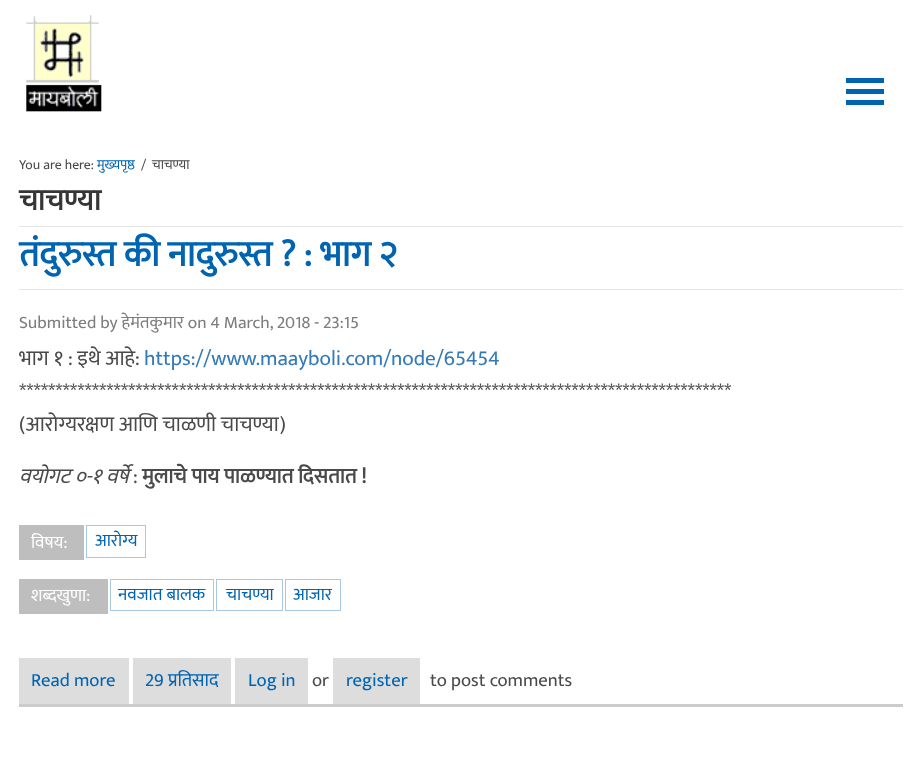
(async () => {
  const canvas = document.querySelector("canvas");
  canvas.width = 921;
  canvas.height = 768;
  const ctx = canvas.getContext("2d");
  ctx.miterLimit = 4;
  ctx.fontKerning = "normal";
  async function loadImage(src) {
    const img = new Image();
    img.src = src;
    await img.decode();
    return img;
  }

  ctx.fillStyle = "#ffffff";
  ctx.fillRect(0, 0, 921, 768);
  ctx.drawImage(await loadImage("img/1.png"), 26, 15, 76, 97);
  for (const [x, y, w, h, color] of [
    [846, 78, 38, 5, "#0064b1"],
    [846, 89, 38, 5, "#0064b1"],
    [846, 100, 38, 5, "#0064b1"],
    [19, 226, 884, 1, "#e5e5e5"],
    [19, 289, 884, 1, "#e5e5e5"],
    [19, 525, 65, 35, "#bebebe"],
  ]) {
    ctx.fillStyle = color;
    ctx.fillRect(x, y, w, h);
  }
  ctx.strokeStyle = "#a6c9e4";
  ctx.strokeRect(86.5, 525.5, 59, 32);
  ctx.fillRect(19, 579, 89, 35);
  ctx.strokeRect(110.5, 579.5, 103, 31);
  ctx.strokeRect(216.5, 579.5, 66, 31);
  ctx.strokeRect(285.5, 579.5, 55, 31);
  for (const [x, y, w, h, color] of [
    [19, 704, 884, 3, "#cccccc"],
    [19, 658, 110, 46, "#dddddd"],
    [133, 658, 98, 46, "#dddddd"],
    [235, 658, 73, 46, "#dddddd"],
    [333, 658, 87, 46, "#dddddd"],
  ]) {
    ctx.fillStyle = color;
    ctx.fillRect(x, y, w, h);
  }
  ctx.font = "13.75px Ek Mukta";
  ctx.fillStyle = "#4a4a4a";
  ctx.fillText("You are here:", 19, 169);
  ctx.fillStyle = "#0064b1";
  ctx.fillText("मुख्यपृष्ठ", 97, 169);
  ctx.fillStyle = "#4a4a4a";
  ctx.fillText("/", 141, 169);
  ctx.fillText("चाचण्या", 152, 169);
  ctx.font = "bold 30px Ek Mukta";
  ctx.fillStyle = "#363636";
  ctx.fillText("चाचण्या", 19, 210);
  ctx.font = "bold 36.25px Ek Mukta";
  ctx.fillStyle = "#0064b1";
  ctx.fillText("तंदुरुस्त की नादुरुस्त ? : भाग २", 19, 266);
  ctx.font = "17.5px Ek Mukta";
  ctx.fillStyle = "#7d7d7d";
  ctx.fillText("Submitted by हेमंतकुमार on 4 March, 2018 - 23:15", 19, 328);
  ctx.font = "21.25px Ek Mukta";
  ctx.fillStyle = "#4a4a4a";
  ctx.fillText("भाग १ : इथे आहे:", 19, 365);
  ctx.fillStyle = "#337ab7";
  ctx.fillText("https://www.maayboli.com/node/65454", 144, 365);
  ctx.fillStyle = "#4a4a4a";
  ctx.fillText("**************************************************************************************************", 19, 398);
  ctx.fillText("(आरोग्यरक्षण आणि चाळणी चाचण्या)", 19, 431);
  ctx.font = "italic 21.25px Ek Mukta";
  ctx.fillText("वयोगट ०-१ वर्षे", 19, 483);
  ctx.font = "21.25px Ek Mukta";
  ctx.fillText(":", 133, 483);
  ctx.font = "bold 21.25px Ek Mukta";
  ctx.fillText("मुलाचे पाय पाळण्यात दिसतात !", 142, 483);
  ctx.font = "17.5px Ek Mukta";
  ctx.fillStyle = "#ffffff";
  ctx.fillText("विषय:", 31, 548);
  ctx.fillStyle = "#0064b1";
  ctx.fillText("आरोग्य", 95, 546);
  ctx.fillStyle = "#ffffff";
  ctx.fillText("शब्दखुणा:", 31, 601);
  ctx.fillStyle = "#0064b1";
  for (const [text, x, y] of [
    ["नवजात बालक", 118, 600],
    ["चाचण्या", 226, 600],
    ["आजार", 293, 600],
  ]) {
    ctx.fillText(text, x, y);
  }
  ctx.font = "18.75px Ek Mukta";
  for (const [text, x, y] of [
    ["Read more", 31, 686],
    ["29 प्रतिसाद", 145, 686],
    ["Log in", 248, 686],
  ]) {
    ctx.fillText(text, x, y);
  }
  ctx.fillStyle = "#4a4a4a";
  ctx.fillText("or", 312, 686);
  ctx.fillStyle = "#0064b1";
  ctx.fillText("register", 346, 686);
  ctx.fillStyle = "#4a4a4a";
  ctx.fillText("to post comments", 430, 686);
})();
